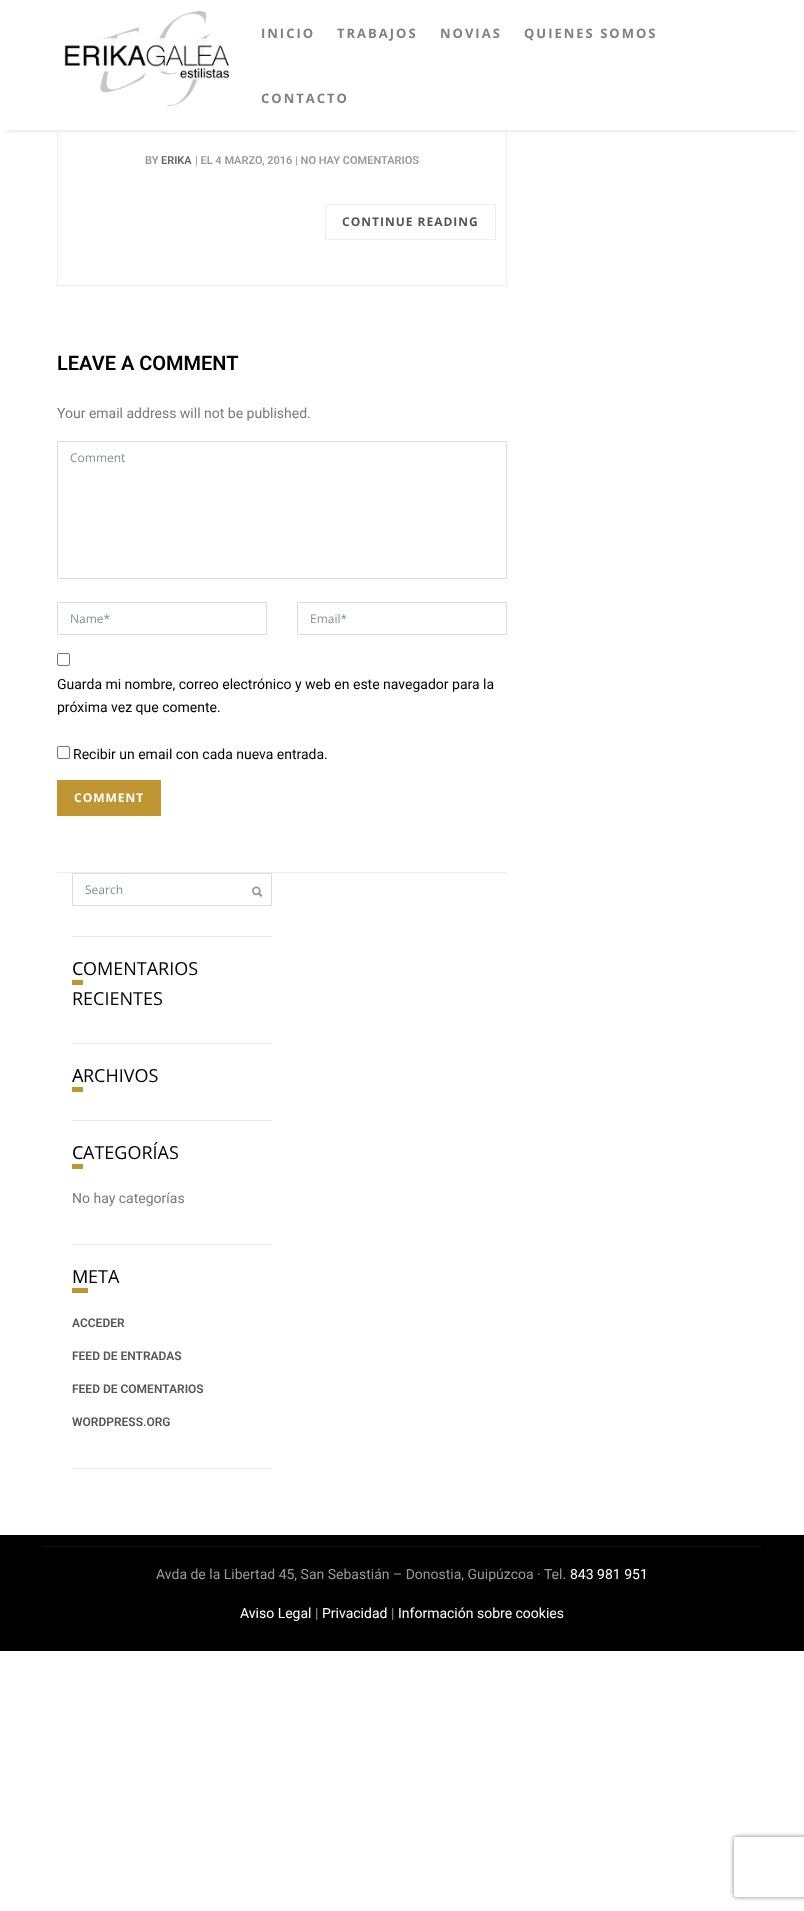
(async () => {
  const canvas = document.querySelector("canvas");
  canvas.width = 804;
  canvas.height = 1911;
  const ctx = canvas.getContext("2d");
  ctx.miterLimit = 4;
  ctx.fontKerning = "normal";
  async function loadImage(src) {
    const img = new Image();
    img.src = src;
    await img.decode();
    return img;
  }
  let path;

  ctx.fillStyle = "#ffffff";
  ctx.fillRect(0, 0, 804, 1911);
  ctx.save();
  ctx.beginPath();
  ctx.rect(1, 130, 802, 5);
  ctx.clip();
  ctx.fillStyle = "#cccccc";
  ctx.filter = "blur(3px)";
  ctx.beginPath();
  ctx.rect(6, 11, 792, 118);
  ctx.fill();
  ctx.filter = "none";
  ctx.restore();
  ctx.drawImage(await loadImage("img/1.png"), 64, 11, 166, 95);
  ctx.strokeStyle = "#eeeeee";
  ctx.strokeRect(57.5, 130.5, 449, 155);
  ctx.strokeRect(325.5, 204.5, 170, 35);
  ctx.fillStyle = "#eeeeee";
  ctx.fillRect(57, 872, 450, 1);
  ctx.beginPath();
  ctx.roundRect(57.5, 441.5, 449, 137, 0.5);
  ctx.strokeStyle = "#dddddd";
  ctx.stroke();
  ctx.beginPath();
  ctx.roundRect(57.5, 602.5, 209, 32, 0.5);
  ctx.stroke();
  ctx.beginPath();
  ctx.roundRect(297.5, 602.5, 209, 32, 0.5);
  ctx.stroke();
  ctx.beginPath();
  ctx.roundRect(57.5, 653.5, 12, 12, 1.5);
  ctx.strokeStyle = "#767676";
  ctx.stroke();
  ctx.beginPath();
  ctx.roundRect(57.5, 746.5, 12, 12, 1.5);
  ctx.stroke();
  ctx.fillStyle = "#c09632";
  ctx.fillRect(57, 780, 104, 36);
  ctx.beginPath();
  ctx.roundRect(72.5, 873.5, 199, 32, 0.5);
  ctx.strokeStyle = "#dddddd";
  ctx.stroke();
  ctx.drawImage(await loadImage("img/2.png"), 252, 886, 11, 11);
  for (const [x, y, w, h, color] of [
    [72, 936, 200, 1, "#e6e6e6"],
    [72, 980, 11, 5, "#c09632"],
    [72, 1043, 200, 1, "#e6e6e6"],
    [72, 1087, 11, 5, "#c09632"],
    [72, 1120, 200, 1, "#e6e6e6"],
    [72, 1164, 11, 5, "#c09632"],
    [72, 1244, 200, 1, "#e6e6e6"],
    [72, 1288, 16, 5, "#c09632"],
    [72, 1468, 200, 1, "#e6e6e6"],
    [0, 1535, 804, 116, "#000000"],
    [42, 1546, 720, 1, "#111111"],
  ]) {
    ctx.fillStyle = color;
    ctx.fillRect(x, y, w, h);
  }
  ctx.save();
  path = new Path2D("M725 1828H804V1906H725ZM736 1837H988C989 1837 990 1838 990 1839V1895C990 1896 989 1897 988 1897H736C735 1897 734 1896 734 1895V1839C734 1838 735 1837 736 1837Z");
  ctx.clip(path, "evenodd");
  ctx.fillStyle = "#808080";
  ctx.filter = "blur(2.5px)";
  ctx.beginPath();
  ctx.roundRect(734, 1837, 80, 60, 2);
  ctx.fill();
  ctx.filter = "none";
  ctx.restore();
  ctx.letterSpacing = "2px";
  ctx.font = "bold 13px Open Sans";
  ctx.fillStyle = "#808080";
  for (const [text, x, y] of [
    ["INICIO", 261, 38],
    ["TRABAJOS", 337, 38],
    ["NOVIAS", 440, 38],
    ["QUIENES SOMOS", 524, 38],
    ["CONTACTO", 261, 103],
  ]) {
    ctx.fillText(text, x, y);
  }
  ctx.letterSpacing = "0px";
  ctx.font = "600 11px Roboto";
  ctx.fillStyle = "#999999";
  ctx.fillText("BY", 145, 164);
  ctx.fillStyle = "#666666";
  ctx.fillText("ERIKA", 161, 164);
  ctx.fillStyle = "#999999";
  ctx.fillText("| EL 4 MARZO, 2016 | NO HAY COMENTARIOS", 195, 164);
  ctx.letterSpacing = "1px";
  ctx.font = "bold 12px Open Sans";
  ctx.fillStyle = "#555555";
  ctx.fillText("CONTINUE READING", 342, 226);
  ctx.letterSpacing = "0px";
  ctx.font = "600 20px Roboto";
  ctx.fillStyle = "#000000";
  ctx.fillText("LEAVE A COMMENT", 57, 370);
  ctx.font = "14px Roboto";
  ctx.fillStyle = "#7a7a7a";
  ctx.fillText("Your email address will not be published.", 57, 418);
  ctx.font = "12px Open Sans";
  ctx.fillStyle = "#868e96";
  for (const [text, x, y] of [
    ["Comment", 70, 462],
    ["Name*", 70, 623],
    ["Email*", 310, 623],
  ]) {
    ctx.fillText(text, x, y);
  }
  ctx.font = "14px Roboto";
  ctx.fillStyle = "#000000";
  for (const [text, x, y] of [
    ["Guarda mi nombre, correo electrónico y web en este navegador para la", 57, 689],
    ["próxima vez que comente.", 57, 712],
    ["Recibir un email con cada nueva entrada.", 73, 759],
  ]) {
    ctx.fillText(text, x, y);
  }
  ctx.letterSpacing = "1px";
  ctx.font = "bold 12px Open Sans";
  ctx.fillStyle = "#ffffff";
  ctx.fillText("COMMENT", 74, 802);
  ctx.letterSpacing = "0px";
  ctx.font = "12px Open Sans";
  ctx.fillStyle = "#868e96";
  ctx.fillText("Search", 85, 894);
  ctx.font = "18px Noto Sans";
  ctx.fillStyle = "#000000";
  ctx.fillText("C", 72, 975);
  ctx.font = "18px Open Sans";
  ctx.fillText("OMENTARIOS", 83, 975);
  ctx.fillText("RECIENTES", 72, 1005);
  ctx.font = "18px Noto Sans";
  ctx.fillText("A", 72, 1082);
  ctx.font = "18px Open Sans";
  ctx.fillText("RCHIVOS", 83, 1082);
  ctx.font = "18px Noto Sans";
  ctx.fillText("C", 72, 1159);
  ctx.font = "18px Open Sans";
  ctx.fillText("ATEGORÍAS", 83, 1159);
  ctx.font = "14px Roboto";
  ctx.fillStyle = "#7a7a7a";
  ctx.fillText("No hay categorías", 72, 1203);
  ctx.font = "18px Noto Sans";
  ctx.fillStyle = "#000000";
  ctx.fillText("M", 72, 1283);
  ctx.font = "18px Open Sans";
  ctx.fillText("ETA", 88, 1283);
  ctx.font = "600 12px Roboto";
  ctx.fillStyle = "#555555";
  for (const [text, x, y] of [
    ["ACCEDER", 72, 1327],
    ["FEED DE ENTRADAS", 72, 1360],
    ["FEED DE COMENTARIOS", 72, 1393],
    ["WORDPRESS.ORG", 72, 1426],
  ]) {
    ctx.fillText(text, x, y);
  }
  ctx.font = "14px Roboto";
  ctx.fillStyle = "#999999";
  ctx.fillText("Avda de la Libertad 45, San Sebastián – Donostia, Guipúzcoa · Tel.", 156, 1579);
  ctx.fillStyle = "#ffffff";
  ctx.fillText("843 981 951", 570, 1579);
  ctx.fillText("Aviso Legal", 240, 1618);
  ctx.fillStyle = "#999999";
  ctx.fillText("|", 315, 1618);
  ctx.fillStyle = "#ffffff";
  ctx.fillText("Privacidad", 322, 1618);
  ctx.fillStyle = "#999999";
  ctx.fillText("|", 391, 1618);
  ctx.fillStyle = "#ffffff";
  ctx.fillText("Información sobre cookies", 398, 1618);
})();
